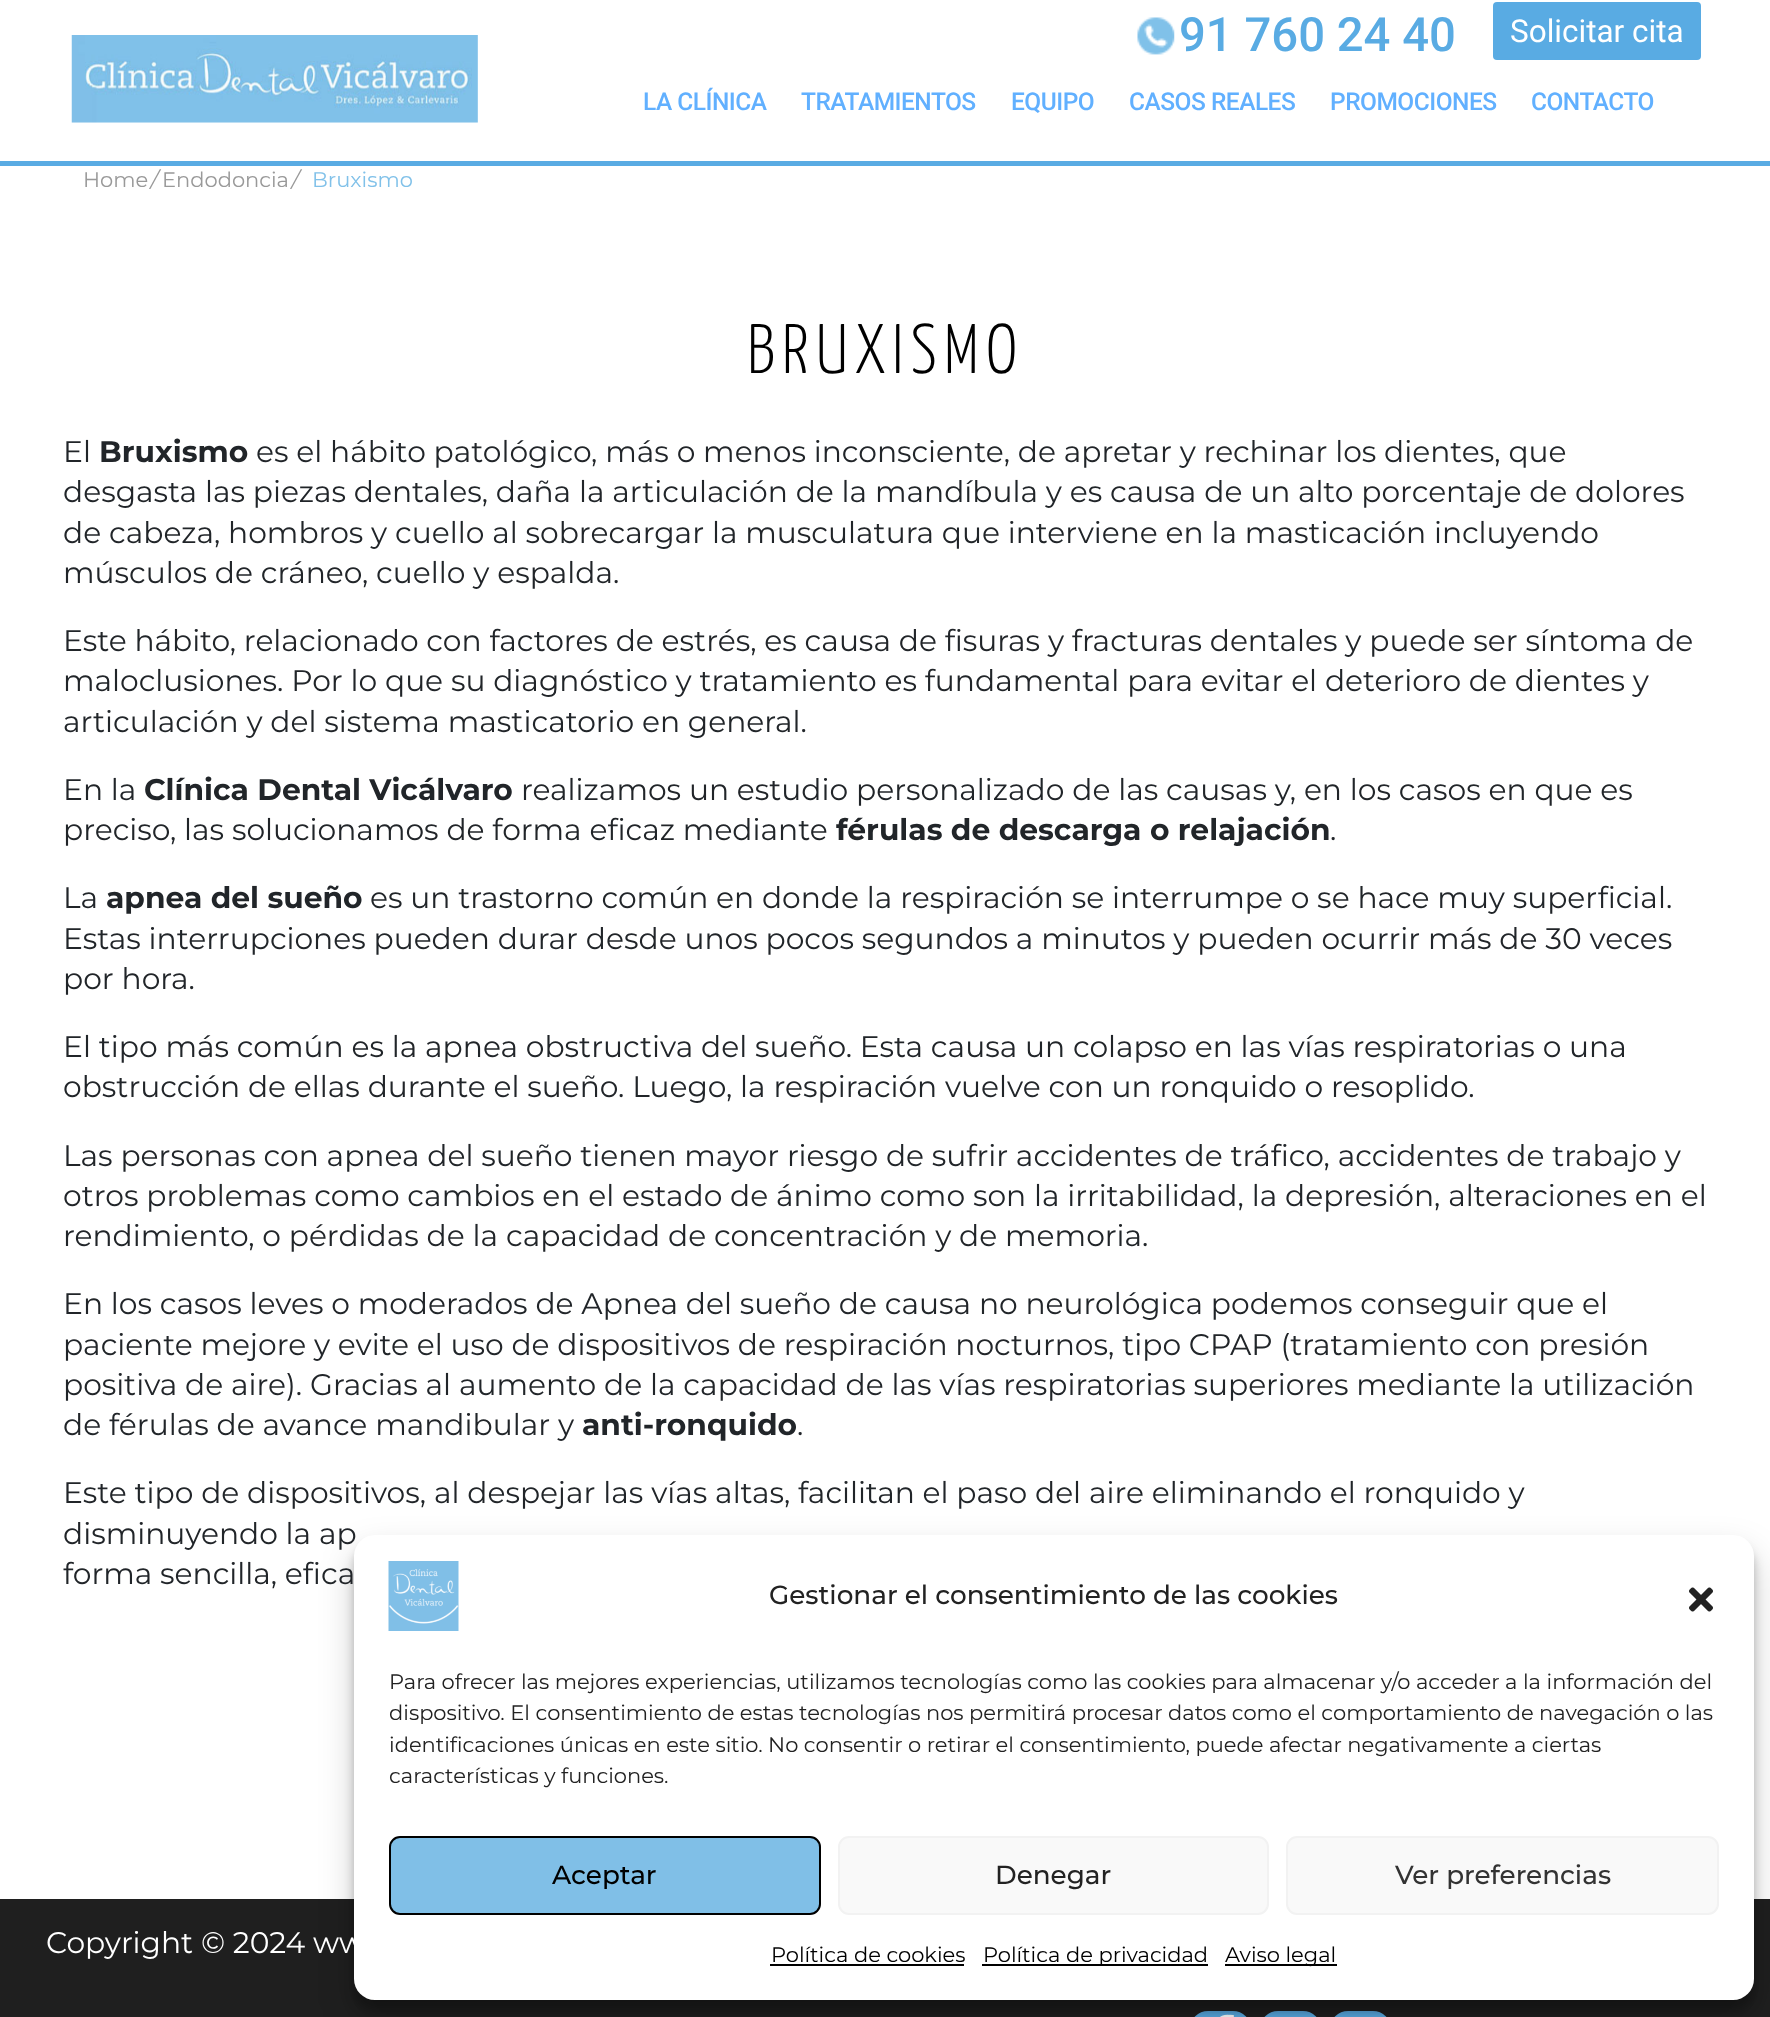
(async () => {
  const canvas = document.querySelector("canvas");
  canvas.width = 1770;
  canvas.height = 2017;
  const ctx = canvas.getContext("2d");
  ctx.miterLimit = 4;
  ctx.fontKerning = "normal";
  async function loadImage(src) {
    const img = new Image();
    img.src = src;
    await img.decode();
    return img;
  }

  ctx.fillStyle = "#ffffff";
  ctx.fillRect(0, 0, 1770, 2017);
  ctx.fillStyle = "#59abe3";
  ctx.fillRect(0, 161, 1770, 5);
  ctx.drawImage(await loadImage("img/1.png"), 71, 35, 407, 88);
  ctx.drawImage(await loadImage("img/2.png"), 1137, 17, 38, 38);
  ctx.beginPath();
  ctx.roundRect(1493, 2, 208, 58, 4);
  ctx.fill();
  ctx.fillStyle = "#1f1f1f";
  ctx.fillRect(0, 1899, 1770, 118);
  ctx.fillStyle = "#59abe3";
  ctx.beginPath();
  ctx.roundRect(1190, 2011, 61, 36, 29.5);
  ctx.fill();
  ctx.drawImage(await loadImage("img/3.png"), 1220, 2014, 14, 3);
  ctx.beginPath();
  ctx.roundRect(1260, 2011, 61, 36, 29.5);
  ctx.fill();
  ctx.beginPath();
  ctx.roundRect(1330, 2011, 61, 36, 29.5);
  ctx.fill();
  ctx.fillStyle = "rgba(0, 0, 0, 0.23)";
  ctx.filter = "blur(5px)";
  ctx.beginPath();
  ctx.roundRect(354, 1545, 1400, 466, 21);
  ctx.fill();
  ctx.filter = "none";
  ctx.fillStyle = "rgba(0, 0, 0, 0.19)";
  ctx.filter = "blur(17.5px)";
  ctx.beginPath();
  ctx.roundRect(354, 1552, 1400, 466, 21);
  ctx.fill();
  ctx.filter = "none";
  ctx.font = "500 47.25px Roboto";
  ctx.fillStyle = "#59abe3";
  ctx.fillText("91 760 24 40", 1179, 51);
  ctx.font = "31.5px Roboto";
  ctx.fillStyle = "#ffffff";
  ctx.fillText("Solicitar cita", 1510, 42);
  ctx.letterSpacing = "-0.5px";
  ctx.font = "500 24.5px Roboto";
  ctx.fillStyle = "#61b0ff";
  for (const [text, x, y] of [
    ["LA CLÍNICA", 643, 110],
    ["TRATAMIENTOS", 801, 110],
    ["EQUIPO", 1011, 110],
    ["CASOS REALES", 1129, 110],
    ["PROMOCIONES", 1330, 110],
    ["CONTACTO", 1531, 110],
  ]) {
    ctx.fillText(text, x, y);
  }
  ctx.letterSpacing = "0px";
  ctx.font = "21px Montserrat";
  ctx.fillStyle = "#999999";
  ctx.fillText("Home", 83, 187);
  ctx.font = "italic 21px Montserrat";
  ctx.fillText("/", 151, 187);
  ctx.font = "21px Montserrat";
  ctx.fillText("Endodoncia", 162, 187);
  ctx.font = "italic 21px Montserrat";
  ctx.fillText("/", 292, 187);
  ctx.font = "21px Montserrat";
  ctx.fillStyle = "#80c1e9";
  ctx.fillText("Bruxismo", 312, 187);
  ctx.letterSpacing = "7px";
  ctx.font = "300 70px Yanone Kaffeesatz";
  ctx.fillStyle = "#000000";
  ctx.fillText("BRUXISMO", 747, 373);
  ctx.letterSpacing = "0px";
  ctx.font = "29.75px Montserrat";
  ctx.fillStyle = "#212529";
  ctx.fillText("El", 63, 462);
  ctx.font = "bold 29.75px Montserrat";
  ctx.fillText("Bruxismo", 99, 462);
  ctx.font = "29.75px Montserrat";
  for (const [text, x, y] of [
    ["es el hábito patológico, más o menos inconsciente, de apretar y rechinar los dientes, que", 256, 462],
    ["desgasta las piezas dentales, daña la articulación de la mandíbula y es causa de un alto porcentaje de dolores", 63, 502],
    ["de cabeza, hombros y cuello al sobrecargar la musculatura que interviene en la masticación incluyendo", 63, 543],
    ["músculos de cráneo, cuello y espalda.", 63, 583],
    ["Este hábito, relacionado con factores de estrés, es causa de fisuras y fracturas dentales y puede ser síntoma de", 63, 651],
    ["maloclusiones. Por lo que su diagnóstico y tratamiento es fundamental para evitar el deterioro de dientes y", 63, 691],
    ["articulación y del sistema masticatorio en general.", 63, 732],
    ["En la", 63, 800],
  ]) {
    ctx.fillText(text, x, y);
  }
  ctx.font = "bold 29.75px Montserrat";
  ctx.fillText("Clínica Dental Vicálvaro", 144, 800);
  ctx.font = "29.75px Montserrat";
  ctx.fillText("realizamos un estudio personalizado de las causas y, en los casos en que es", 521, 800);
  ctx.fillText("preciso, las solucionamos de forma eficaz mediante", 63, 840);
  ctx.font = "bold 29.75px Montserrat";
  ctx.fillText("férulas de descarga o relajación", 836, 840);
  ctx.font = "29.75px Montserrat";
  ctx.fillText(".", 1330, 840);
  ctx.fillText("La", 63, 908);
  ctx.font = "bold 29.75px Montserrat";
  ctx.fillText("apnea del sueño", 106, 908);
  ctx.font = "29.75px Montserrat";
  for (const [text, x, y] of [
    ["es un trastorno común en donde la respiración se interrumpe o se hace muy superficial.", 370, 908],
    ["Estas interrupciones pueden durar desde unos pocos segundos a minutos y pueden ocurrir más de 30 veces", 63, 949],
    ["por hora.", 63, 989],
    ["El tipo más común es la apnea obstructiva del sueño. Esta causa un colapso en las vías respiratorias o una", 63, 1057],
    ["obstrucción de ellas durante el sueño. Luego, la respiración vuelve con un ronquido o resoplido.", 63, 1097],
    ["Las personas con apnea del sueño tienen mayor riesgo de sufrir accidentes de tráfico, accidentes de trabajo y", 63, 1166],
    ["otros problemas como cambios en el estado de ánimo como son la irritabilidad, la depresión, alteraciones en el", 63, 1206],
    ["rendimiento, o pérdidas de la capacidad de concentración y de memoria.", 63, 1246],
    ["En los casos leves o moderados de Apnea del sueño de causa no neurológica podemos conseguir que el", 63, 1314],
    ["paciente mejore y evite el uso de dispositivos de respiración nocturnos, tipo CPAP (tratamiento con presión", 63, 1355],
    ["positiva de aire). Gracias al aumento de la capacidad de las vías respiratorias superiores mediante la utilización", 63, 1395],
    ["de férulas de avance mandibular y", 63, 1435],
  ]) {
    ctx.fillText(text, x, y);
  }
  ctx.font = "bold 29.75px Montserrat";
  ctx.fillText("anti-ronquido", 582, 1435);
  ctx.font = "29.75px Montserrat";
  for (const [text, x, y] of [
    [".", 797, 1435],
    ["Este tipo de dispositivos, al despejar las vías altas, facilitan el paso del aire eliminando el ronquido y", 63, 1503],
    ["disminuyendo la ap", 63, 1544],
    ["forma sencilla, efica", 63, 1584],
  ]) {
    ctx.fillText(text, x, y);
  }
  ctx.fillStyle = "#ffffff";
  ctx.fillText("Copyright © 2024 ww", 46, 1953);
  ctx.beginPath();
  ctx.roundRect(354, 1535, 1400, 465, 21);
  ctx.fill();
  ctx.drawImage(await loadImage("img/4.png"), 388, 1561, 71, 70);
  ctx.font = "500 26.25px Montserrat";
  ctx.fillStyle = "#222222";
  ctx.fillText("Gestionar el consentimiento de las cookies", 769, 1604);
  ctx.drawImage(await loadImage("img/5.png"), 1689, 1587, 24, 25);
  ctx.font = "21px Montserrat";
  for (const [text, x, y] of [
    ["Para ofrecer las mejores experiencias, utilizamos tecnologías como las cookies para almacenar y/o acceder a la información del", 389, 1689],
    ["dispositivo. El consentimiento de estas tecnologías nos permitirá procesar datos como el comportamiento de navegación o las", 389, 1720],
    ["identificaciones únicas en este sitio. No consentir o retirar el consentimiento, puede afectar negativamente a ciertas", 389, 1752],
    ["características y funciones.", 389, 1783],
  ]) {
    ctx.fillText(text, x, y);
  }
  ctx.fillStyle = "#80bfe7";
  ctx.beginPath();
  ctx.roundRect(390, 1837, 430, 77, 10);
  ctx.fill();
  ctx.strokeStyle = "#000000";
  ctx.lineWidth = 2;
  ctx.stroke();
  ctx.font = "500 26.25px Montserrat";
  ctx.fillStyle = "#000000";
  ctx.fillText("Aceptar", 552, 1884);
  ctx.fillStyle = "#f9f9f9";
  ctx.beginPath();
  ctx.roundRect(839, 1837, 429, 77, 10);
  ctx.fill();
  ctx.strokeStyle = "#f2f2f2";
  ctx.stroke();
  ctx.fillStyle = "#222222";
  ctx.fillText("Denegar", 995, 1884);
  ctx.fillStyle = "#f9f9f9";
  ctx.beginPath();
  ctx.roundRect(1287, 1837, 431, 77, 10);
  ctx.fill();
  ctx.stroke();
  ctx.fillStyle = "#333333";
  ctx.fillText("Ver preferencias", 1395, 1884);
  ctx.font = "21px Montserrat";
  ctx.fillStyle = "#000000";
  ctx.fillText("Política de cookies", 771, 1962);
  ctx.fillRect(770, 1964, 194, 2);
  ctx.fillRect(982, 1964, 226, 2);
  ctx.fillText("Política de privacidad", 983, 1962);
  ctx.fillRect(1225, 1964, 112, 2);
  ctx.fillText("Aviso legal", 1225, 1962);
})();
